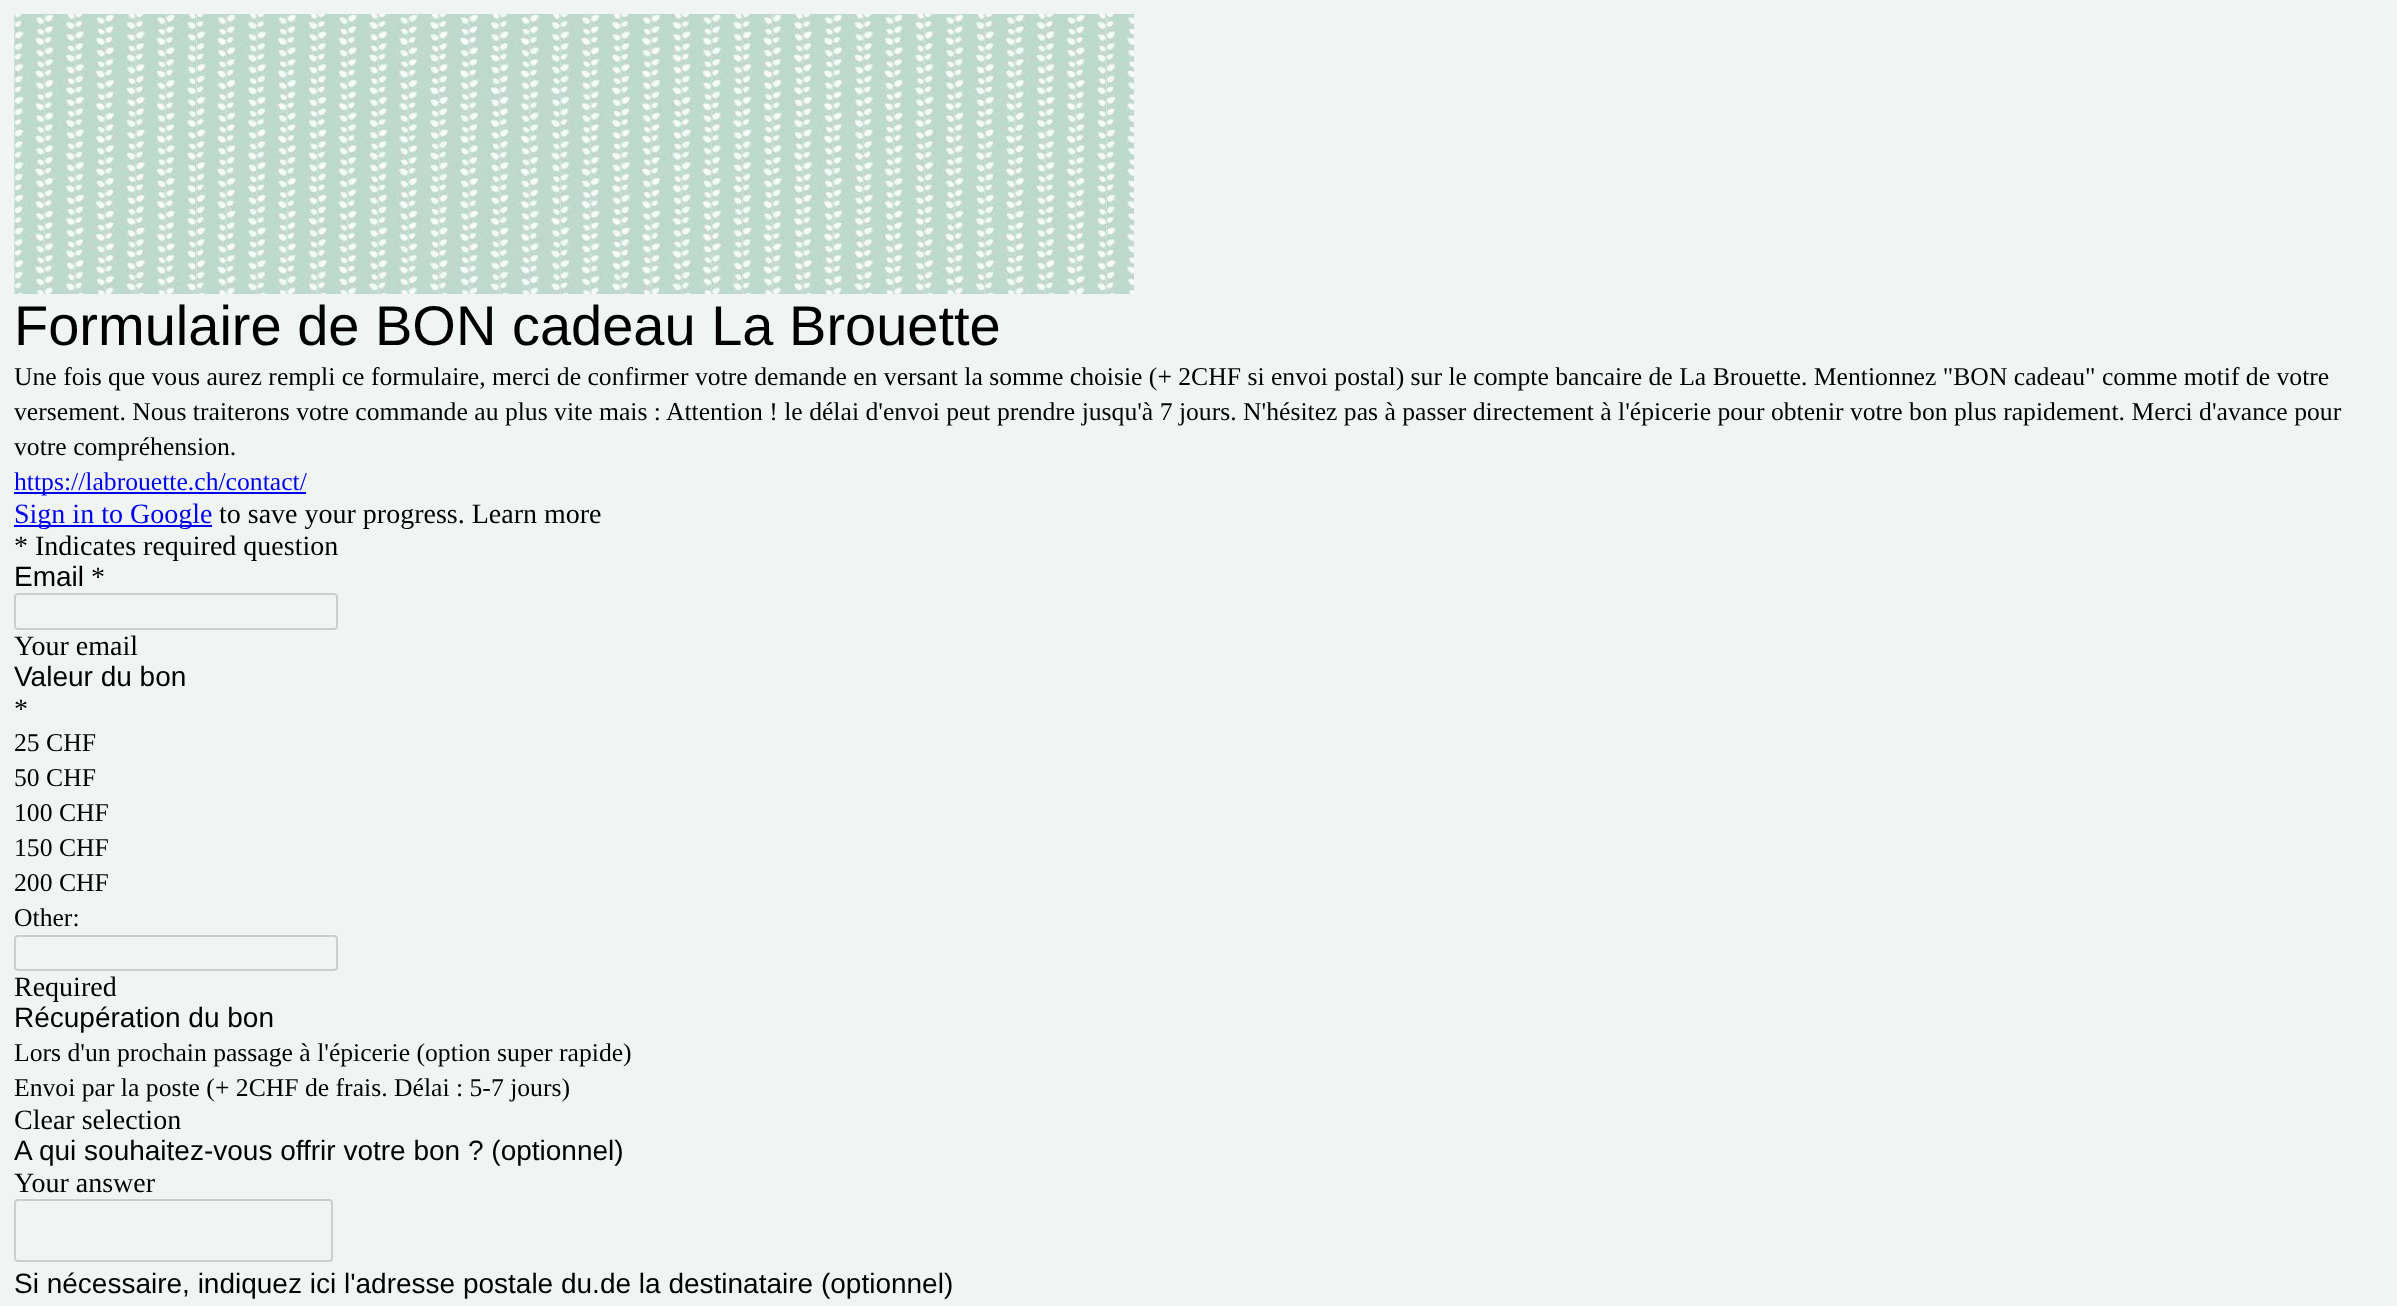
(async () => {
  const canvas = document.querySelector("canvas");
  canvas.width = 2397;
  canvas.height = 1306;
  const ctx = canvas.getContext("2d");
  ctx.miterLimit = 4;
  ctx.fontKerning = "normal";
  async function loadImage(src) {
    const img = new Image();
    img.src = src;
    await img.decode();
    return img;
  }

  ctx.fillStyle = "#f0f5f3";
  ctx.fillRect(0, 0, 2397, 1306);
  ctx.drawImage(await loadImage("img/1.png"), 14, 14, 1120, 280);
  ctx.fillStyle = "#0000ee";
  ctx.fillRect(14, 492, 292, 2);
  ctx.fillRect(14, 525, 198, 2);
  ctx.beginPath();
  ctx.roundRect(15, 594, 322, 35, 3);
  ctx.strokeStyle = "#cbcecd";
  ctx.lineWidth = 2;
  ctx.stroke();
  ctx.beginPath();
  ctx.roundRect(15, 936, 322, 34, 3);
  ctx.stroke();
  ctx.beginPath();
  ctx.roundRect(15, 1200, 317, 61, 3);
  ctx.stroke();
  ctx.font = "56px Liberation Sans";
  ctx.fillStyle = "#000000";
  ctx.fillText("Formulaire de BON cadeau La Brouette", 14, 345);
  ctx.font = "25.67px Liberation Serif";
  for (const [text, x, y] of [
    ["Une fois que vous aurez rempli ce formulaire, merci de confirmer votre demande en versant la somme choisie (+ 2CHF si envoi postal) sur le compte bancaire de La Brouette. Mentionnez \"BON cadeau\" comme motif de votre", 14, 385],
    ["versement. Nous traiterons votre commande au plus vite mais : Attention ! le délai d'envoi peut prendre jusqu'à 7 jours. N'hésitez pas à passer directement à l'épicerie pour obtenir votre bon plus rapidement. Merci d'avance pour", 14, 420],
    ["votre compréhension.", 14, 455],
  ]) {
    ctx.fillText(text, x, y);
  }
  ctx.fillStyle = "#0000ee";
  ctx.fillText("https://labrouette.ch/contact/", 14, 490);
  ctx.font = "28px Liberation Serif";
  ctx.fillText("Sign in to Google", 14, 523);
  ctx.fillStyle = "#000000";
  ctx.fillText("to save your progress. Learn more", 219, 523);
  ctx.fillText("* Indicates required question", 14, 555);
  ctx.font = "28px Liberation Sans";
  ctx.fillText("Email", 14, 586);
  ctx.font = "28px Liberation Serif";
  ctx.fillText("*", 91, 586);
  ctx.fillText("Your email", 14, 655);
  ctx.font = "28px Liberation Sans";
  ctx.fillText("Valeur du bon", 14, 686);
  ctx.font = "28px Liberation Serif";
  ctx.fillText("*", 14, 718);
  ctx.font = "25.67px Liberation Serif";
  for (const [text, x, y] of [
    ["25 CHF", 14, 751],
    ["50 CHF", 14, 786],
    ["100 CHF", 14, 821],
    ["150 CHF", 14, 856],
    ["200 CHF", 14, 891],
    ["Other:", 14, 926],
  ]) {
    ctx.fillText(text, x, y);
  }
  ctx.font = "28px Liberation Serif";
  ctx.fillText("Required", 14, 996);
  ctx.font = "28px Liberation Sans";
  ctx.fillText("Récupération du bon", 14, 1027);
  ctx.font = "25.67px Liberation Serif";
  ctx.fillText("Lors d'un prochain passage à l'épicerie (option super rapide)", 14, 1061);
  ctx.fillText("Envoi par la poste (+ 2CHF de frais. Délai : 5-7 jours)", 14, 1096);
  ctx.font = "28px Liberation Serif";
  ctx.fillText("Clear selection", 14, 1129);
  ctx.font = "28px Liberation Sans";
  ctx.fillText("A qui souhaitez-vous offrir votre bon ? (optionnel)", 14, 1160);
  ctx.font = "28px Liberation Serif";
  ctx.fillText("Your answer", 14, 1192);
  ctx.font = "28px Liberation Sans";
  ctx.fillText("Si nécessaire, indiquez ici l'adresse postale du.de la destinataire (optionnel)", 14, 1293);
})();
